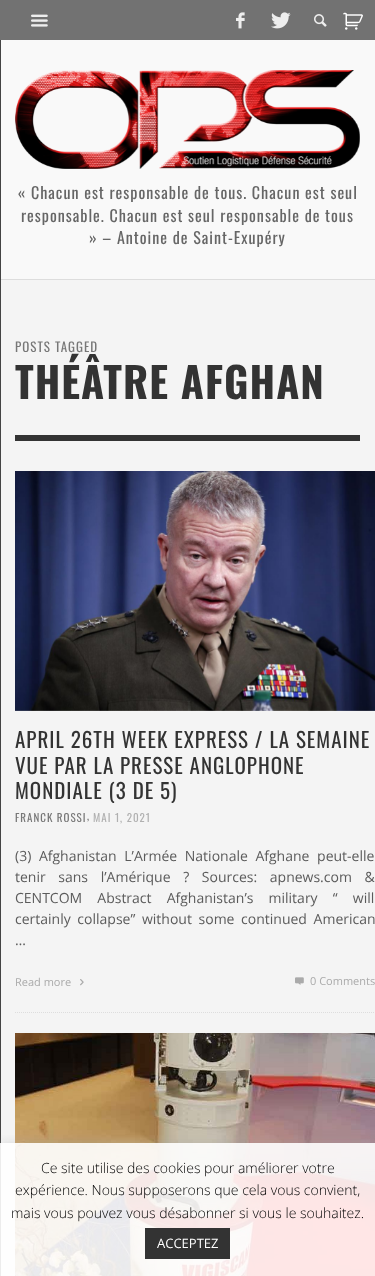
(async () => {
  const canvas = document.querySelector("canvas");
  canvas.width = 375;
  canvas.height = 1276;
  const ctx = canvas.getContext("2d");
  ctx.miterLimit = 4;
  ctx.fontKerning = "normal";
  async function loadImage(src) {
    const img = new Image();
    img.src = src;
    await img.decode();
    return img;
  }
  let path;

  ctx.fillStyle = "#f4f4f4";
  ctx.fillRect(0, 0, 375, 1276);
  for (const [x, y, w, h, color] of [
    [0, 279, 375, 1, "#dddddd"],
    [0, 40, 1, 1236, "#444444"],
    [0, 0, 375, 40, "#727272"],
  ]) {
    ctx.fillStyle = color;
    ctx.fillRect(x, y, w, h);
  }
  ctx.drawImage(await loadImage("img/1.png"), 31, 14, 17, 13);
  ctx.drawImage(await loadImage("img/2.png"), 236, 12, 9, 17);
  ctx.drawImage(await loadImage("img/3.png"), 271, 12, 20, 17);
  ctx.drawImage(await loadImage("img/4.png"), 314, 14, 13, 13);
  ctx.drawImage(await loadImage("img/5.png"), 343, 12, 20, 18);
  ctx.fillStyle = "#f9f9f9";
  ctx.fillRect(1, 40, 374, 239);
  ctx.drawImage(await loadImage("img/6.png"), 15, 70, 345, 99);
  ctx.fillStyle = "#333333";
  ctx.fillRect(15, 435, 345, 6);
  path = new Path2D("M15 1012.5H375");
  ctx.strokeStyle = "#dddddd";
  ctx.setLineDash([1, 1]);
  ctx.stroke(path);
  ctx.drawImage(await loadImage("img/7.png"), 15, 471, 360, 240);
  ctx.drawImage(await loadImage("img/8.png"), 80, 979, 4, 7);
  ctx.drawImage(await loadImage("img/9.png"), 295, 977, 9, 8);
  ctx.drawImage(await loadImage("img/10.png"), 15, 1033, 360, 243);
  ctx.save();
  ctx.beginPath();
  ctx.rect(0, 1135, 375, 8);
  ctx.clip();
  ctx.fillStyle = "rgba(172, 171, 171, 0.3)";
  ctx.filter = "blur(5px)";
  ctx.beginPath();
  ctx.rect(0, 1142, 375, 133);
  ctx.fill();
  ctx.filter = "none";
  ctx.restore();
  ctx.fillStyle = "rgba(255, 255, 255, 0.9)";
  ctx.fillRect(0, 1143, 375, 133);
  ctx.fillStyle = "#333333";
  ctx.fillRect(145, 1228, 85, 31);
  ctx.letterSpacing = "1px";
  ctx.font = "16px Oswald";
  ctx.fillStyle = "#666666";
  for (const [text, x, y] of [
    ["« Chacun est responsable de tous. Chacun est seul", 18, 199],
    ["responsable. Chacun est seul responsable de tous", 21, 222],
    ["» – Antoine de Saint-Exupéry", 89, 244],
  ]) {
    ctx.fillText(text, x, y);
  }
  ctx.font = "13px Oswald";
  ctx.fillStyle = "#777777";
  ctx.fillText("POSTS TAGGED", 15, 352);
  ctx.font = "bold 42px Oswald";
  ctx.fillStyle = "#333333";
  ctx.fillText("THÉÂTRE AFGHAN", 15, 399);
  ctx.font = "21px Oswald";
  for (const [text, x, y] of [
    ["APRIL 26TH WEEK EXPRESS / LA SEMAINE", 15, 748],
    ["VUE PAR LA PRESSE ANGLOPHONE", 15, 774],
    ["MONDIALE (3 DE 5)", 15, 799],
  ]) {
    ctx.fillText(text, x, y);
  }
  ctx.font = "11px Oswald";
  ctx.fillStyle = "#777777";
  ctx.fillText("FRANCK ROSSI", 15, 822);
  ctx.fillText(",", 87, 820);
  ctx.fillStyle = "#b0b0b0";
  ctx.fillText("MAI 1, 2021", 93, 822);
  ctx.letterSpacing = "0px";
  ctx.wordSpacing = "4px";
  ctx.font = "14px Open Sans";
  ctx.fillStyle = "#5b5b5b";
  ctx.fillText("(3) Afghanistan L’Armée Nationale Afghane peut-elle", 15, 861);
  ctx.wordSpacing = "9px";
  ctx.fillText("tenir sans l’Amérique ? Sources: apnews.com &", 15, 882);
  ctx.wordSpacing = "11.5px";
  ctx.fillText("CENTCOM Abstract Afghanistan’s military “ will", 15, 903);
  ctx.wordSpacing = "3px";
  ctx.fillText("certainly collapse” without some continued American", 15, 924);
  ctx.wordSpacing = "0px";
  ctx.fillText("…", 15, 945);
  ctx.font = "11px Open Sans";
  ctx.fillStyle = "#aaaaaa";
  ctx.fillText("Read more", 15, 986);
  ctx.fillText("0 Comments", 310, 985);
  ctx.font = "300 14px Open Sans";
  ctx.fillStyle = "#000000";
  for (const [text, x, y] of [
    ["Ce site utilise des cookies pour améliorer votre", 41, 1173],
    ["expérience. Nous supposerons que cela vous convient,", 15, 1195],
    ["mais vous pouvez vous désabonner si vous le souhaitez.", 11, 1218],
  ]) {
    ctx.fillText(text, x, y);
  }
  ctx.font = "13px Open Sans";
  ctx.fillStyle = "#ffffff";
  ctx.fillText("ACCEPTEZ", 157, 1248);
})();
